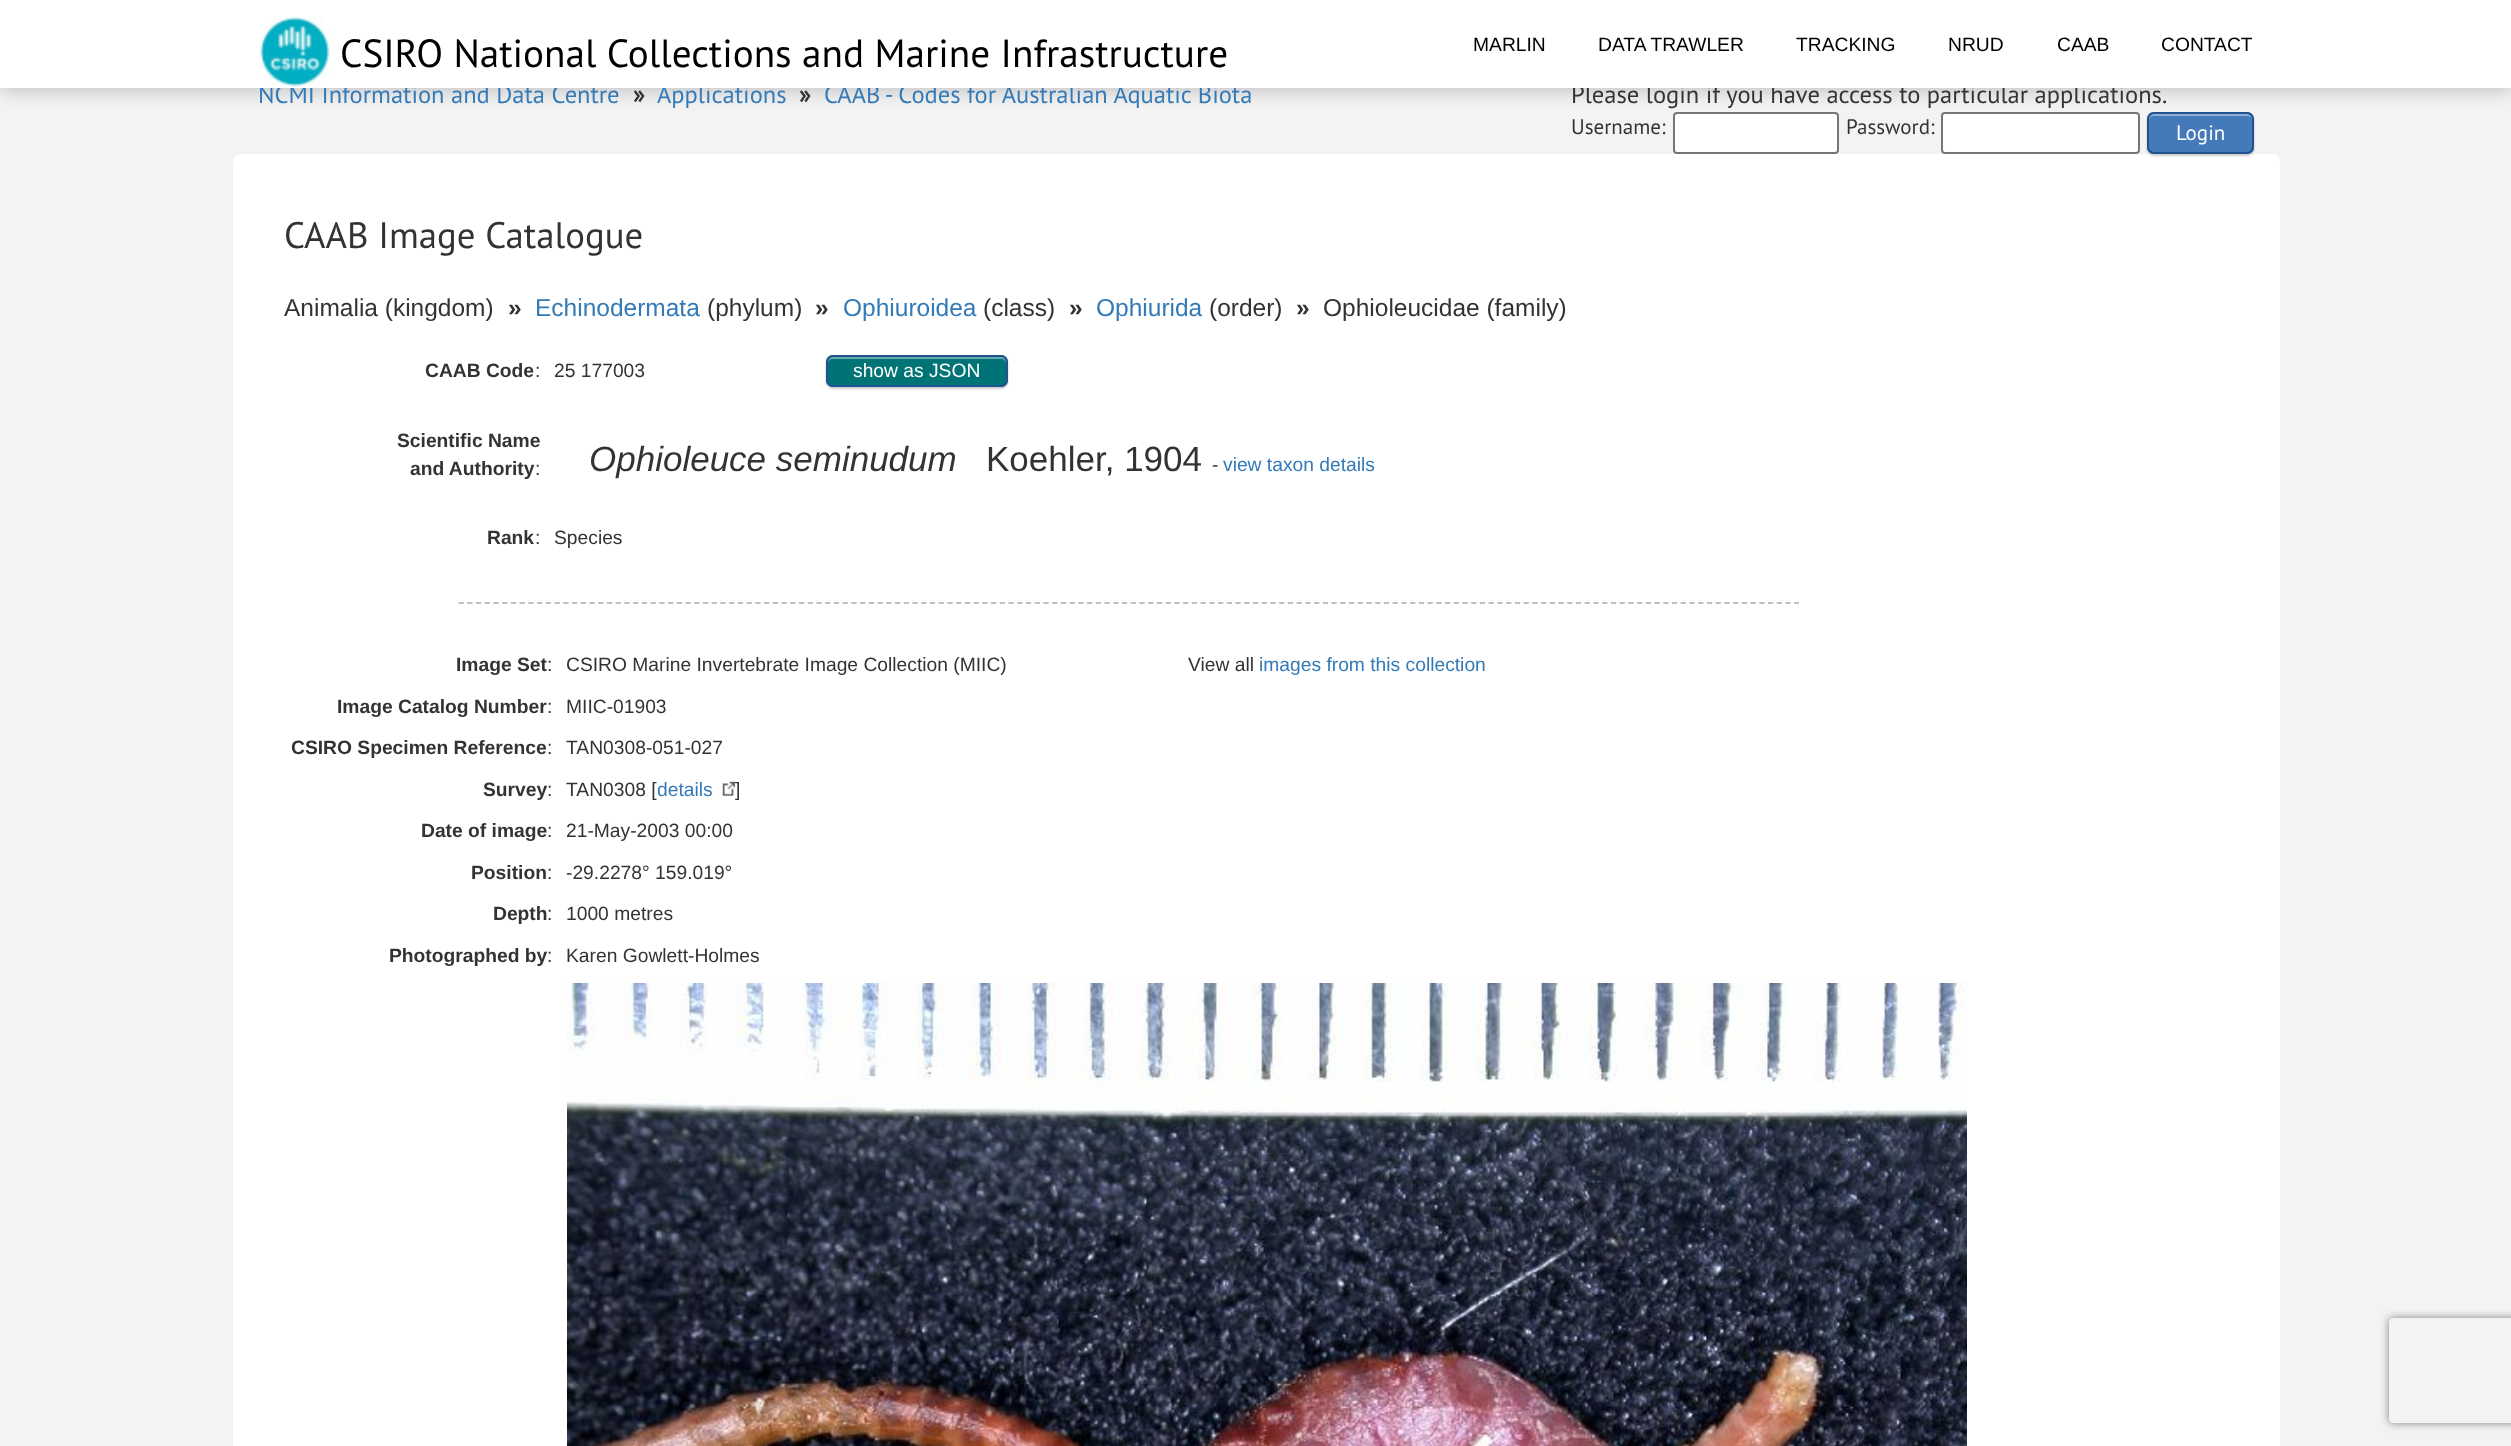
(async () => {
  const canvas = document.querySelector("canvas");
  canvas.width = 2511;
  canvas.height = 1446;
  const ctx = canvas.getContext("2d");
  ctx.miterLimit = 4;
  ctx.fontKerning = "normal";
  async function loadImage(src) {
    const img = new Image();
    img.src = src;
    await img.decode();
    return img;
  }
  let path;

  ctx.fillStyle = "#f3f3f3";
  ctx.fillRect(0, 0, 2511, 1446);
  ctx.fillStyle = "#ffffff";
  ctx.beginPath();
  ctx.roundRect(1674, 113, 164, 40, 3);
  ctx.fill();
  ctx.strokeStyle = "#767676";
  ctx.lineWidth = 2;
  ctx.stroke();
  ctx.beginPath();
  ctx.roundRect(1942, 113, 197, 40, 3);
  ctx.fill();
  ctx.stroke();
  ctx.beginPath();
  ctx.roundRect(233, 154, 2047, 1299, 7);
  ctx.fill();
  ctx.fillStyle = "rgba(0, 0, 0, 0.2)";
  ctx.filter = "blur(1px)";
  ctx.beginPath();
  ctx.roundRect(2147, 114, 107, 42, 7);
  ctx.fill();
  ctx.filter = "none";
  ctx.fillStyle = "#4479ba";
  ctx.beginPath();
  ctx.roundRect(2147, 112, 107, 42, 7);
  ctx.fill();
  ctx.fillStyle = "#8fafd6";
  path = new Path2D("M2154 116H2247C2250 116 2252 118 2252 121C2252 110 2240 114 2232 114H2170C2161 114 2149 110 2149 121C2149 118 2151 116 2154 116Z");
  ctx.fill(path);
  ctx.beginPath();
  ctx.roundRect(2148, 113, 105, 40, 6);
  ctx.strokeStyle = "#20538d";
  ctx.stroke();
  ctx.fillStyle = "rgba(0, 0, 0, 0.2)";
  ctx.filter = "blur(9px)";
  ctx.beginPath();
  ctx.rect(0, 4, 2511, 87);
  ctx.fill();
  ctx.filter = "none";
  ctx.save();
  path = new Path2D("M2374 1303H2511V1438H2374ZM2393 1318H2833C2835 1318 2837 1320 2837 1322V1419C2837 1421 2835 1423 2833 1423H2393C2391 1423 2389 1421 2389 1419V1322C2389 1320 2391 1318 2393 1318Z");
  ctx.clip(path, "evenodd");
  ctx.fillStyle = "#808080";
  ctx.filter = "blur(4.5px)";
  ctx.beginPath();
  ctx.roundRect(2389, 1318, 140, 105, 4);
  ctx.fill();
  ctx.filter = "none";
  ctx.restore();
  ctx.filter = "blur(1px)";
  ctx.beginPath();
  ctx.roundRect(826, 357, 182, 32, 7);
  ctx.fill();
  ctx.filter = "none";
  ctx.fillStyle = "#007377";
  ctx.beginPath();
  ctx.roundRect(826, 355, 182, 32, 7);
  ctx.fill();
  ctx.fillStyle = "#66abad";
  path = new Path2D("M833 359H1001C1004 359 1006 361 1006 364V362C1006 359 1004 357 1001 357H833C830 357 828 359 828 362V364C828 361 830 359 833 359Z");
  ctx.fill(path);
  ctx.beginPath();
  ctx.roundRect(827, 356, 180, 30, 6);
  ctx.stroke();
  path = new Path2D("M458.5 603H1799");
  ctx.strokeStyle = "#c0c0c0";
  ctx.lineWidth = 1.8;
  ctx.setLineDash([5.25, 3.48]);
  ctx.stroke(path);
  ctx.drawImage(await loadImage("img/2.png"), 722, 781, 13, 15);
  ctx.drawImage(await loadImage("img/3.png"), 567, 983, 1400, 463);
  ctx.font = "24.5px PT Sans";
  ctx.fillStyle = "#337ab7";
  ctx.fillText("NCMI Information and Data Centre", 258, 103);
  ctx.font = "bold 24.5px PT Sans";
  ctx.fillStyle = "#333333";
  ctx.fillText("»", 633, 103);
  ctx.font = "24.5px PT Sans";
  ctx.fillStyle = "#337ab7";
  ctx.fillText("Applications", 657, 103);
  ctx.font = "bold 24.5px PT Sans";
  ctx.fillStyle = "#333333";
  ctx.fillText("»", 799, 103);
  ctx.font = "24.5px PT Sans";
  ctx.fillStyle = "#337ab7";
  ctx.fillText("CAAB - Codes for Australian Aquatic Biota", 824, 103);
  ctx.fillStyle = "#333333";
  ctx.fillText("Please login if you have access to particular applications.", 1571, 103);
  ctx.fillStyle = "#ffffff";
  ctx.fillRect(0, 0, 2511, 88);
  ctx.font = "19.25px Liberation Sans";
  ctx.fillStyle = "#000000";
  for (const [text, x, y] of [
    ["CONTACT", 2161, 51],
    ["CAAB", 2057, 51],
    ["NRUD", 1948, 51],
    ["TRACKING", 1796, 51],
    ["DATA TRAWLER", 1598, 51],
    ["MARLIN", 1473, 51],
  ]) {
    ctx.fillText(text, x, y);
  }
  ctx.font = "39.2px PT Sans";
  ctx.fillText("CSIRO National Collections and Marine Infrastructure", 340, 67);
  ctx.drawImage(await loadImage("img/1.png"), 260, 17, 70, 70);
  ctx.font = "21px PT Sans";
  ctx.fillStyle = "#333333";
  ctx.fillText("Username:", 1571, 134);
  ctx.fillText("Password:", 1846, 134);
  ctx.fillStyle = "#ffffff";
  ctx.fillText("Login", 2176, 140);
  ctx.font = "36.75px PT Sans";
  ctx.fillStyle = "#333333";
  ctx.fillText("CAAB Image Catalogue", 284, 248);
  ctx.font = "24.5px Liberation Sans";
  ctx.fillText("Animalia (kingdom)", 284, 316);
  ctx.font = "bold 24.5px Liberation Sans";
  ctx.fillText("»", 508, 316);
  ctx.font = "24.5px Liberation Sans";
  ctx.fillStyle = "#337ab7";
  ctx.fillText("Echinodermata", 535, 316);
  ctx.fillStyle = "#333333";
  ctx.fillText("(phylum)", 707, 316);
  ctx.font = "bold 24.5px Liberation Sans";
  ctx.fillText("»", 815, 316);
  ctx.font = "24.5px Liberation Sans";
  ctx.fillStyle = "#337ab7";
  ctx.fillText("Ophiuroidea", 843, 316);
  ctx.fillStyle = "#333333";
  ctx.fillText("(class)", 983, 316);
  ctx.font = "bold 24.5px Liberation Sans";
  ctx.fillText("»", 1069, 316);
  ctx.font = "24.5px Liberation Sans";
  ctx.fillStyle = "#337ab7";
  ctx.fillText("Ophiurida", 1096, 316);
  ctx.fillStyle = "#333333";
  ctx.fillText("(order)", 1209, 316);
  ctx.font = "bold 24.5px Liberation Sans";
  ctx.fillText("»", 1296, 316);
  ctx.font = "24.5px Liberation Sans";
  ctx.fillText("Ophioleucidae (family)", 1323, 316);
  ctx.font = "bold 19.25px Liberation Sans";
  ctx.fillText("CAAB Code", 425, 377);
  ctx.font = "19.25px Liberation Sans";
  ctx.fillText(":", 535, 377);
  ctx.fillText("25 177003", 554, 377);
  ctx.fillStyle = "#ffffff";
  ctx.fillText("show as JSON", 853, 377);
  ctx.font = "bold 19.25px Liberation Sans";
  ctx.fillStyle = "#333333";
  ctx.fillText("Scientific Name", 397, 447);
  ctx.fillText("and Authority", 410, 475);
  ctx.font = "19.25px Liberation Sans";
  ctx.fillText(":", 535, 475);
  ctx.font = "italic 35px Liberation Sans";
  ctx.fillText("Ophioleuce seminudum", 589, 471);
  ctx.font = "35px Liberation Sans";
  ctx.fillText("Koehler, 1904", 986, 471);
  ctx.font = "19.25px Liberation Sans";
  ctx.fillText("-", 1212, 471);
  ctx.fillStyle = "#337ab7";
  ctx.fillText("view taxon details", 1223, 471);
  ctx.font = "bold 19.25px Liberation Sans";
  ctx.fillStyle = "#333333";
  ctx.fillText("Rank", 487, 544);
  ctx.font = "19.25px Liberation Sans";
  ctx.fillText(":", 535, 544);
  ctx.fillText("Species", 554, 544);
  ctx.font = "bold 19.25px Liberation Sans";
  ctx.fillText("Image Set", 456, 671);
  ctx.font = "19.25px Liberation Sans";
  for (const [text, x, y] of [
    [":", 547, 671],
    ["CSIRO Marine Invertebrate Image Collection (MIIC)", 566, 671],
    ["View all", 1188, 671],
  ]) {
    ctx.fillText(text, x, y);
  }
  ctx.fillStyle = "#337ab7";
  ctx.fillText("images from this collection", 1259, 671);
  ctx.font = "bold 19.25px Liberation Sans";
  ctx.fillStyle = "#333333";
  ctx.fillText("Image Catalog Number", 337, 713);
  ctx.font = "19.25px Liberation Sans";
  ctx.fillText(":", 547, 713);
  ctx.fillText("MIIC-01903", 566, 713);
  ctx.font = "bold 19.25px Liberation Sans";
  ctx.fillText("CSIRO Specimen Reference", 291, 754);
  ctx.font = "19.25px Liberation Sans";
  ctx.fillText(":", 547, 754);
  ctx.fillText("TAN0308-051-027", 566, 754);
  ctx.font = "bold 19.25px Liberation Sans";
  ctx.fillText("Survey", 483, 796);
  ctx.font = "19.25px Liberation Sans";
  ctx.fillText(":", 547, 796);
  ctx.fillText("TAN0308 [", 566, 796);
  ctx.fillStyle = "#337ab7";
  ctx.fillText("details", 657, 796);
  ctx.fillStyle = "#333333";
  ctx.fillText("]", 735, 796);
  ctx.font = "bold 19.25px Liberation Sans";
  ctx.fillText("Date of image", 421, 837);
  ctx.font = "19.25px Liberation Sans";
  ctx.fillText(":", 547, 837);
  ctx.fillText("21-May-2003 00:00", 566, 837);
  ctx.font = "bold 19.25px Liberation Sans";
  ctx.fillText("Position", 471, 879);
  ctx.font = "19.25px Liberation Sans";
  ctx.fillText(":", 547, 879);
  ctx.fillText("-29.2278° 159.019°", 566, 879);
  ctx.font = "bold 19.25px Liberation Sans";
  ctx.fillText("Depth", 493, 920);
  ctx.font = "19.25px Liberation Sans";
  ctx.fillText(":", 547, 920);
  ctx.fillText("1000 metres", 566, 920);
  ctx.font = "bold 19.25px Liberation Sans";
  ctx.fillText("Photographed by", 389, 962);
  ctx.font = "19.25px Liberation Sans";
  ctx.fillText(":", 547, 962);
  ctx.fillText("Karen Gowlett-Holmes", 566, 962);
})();
